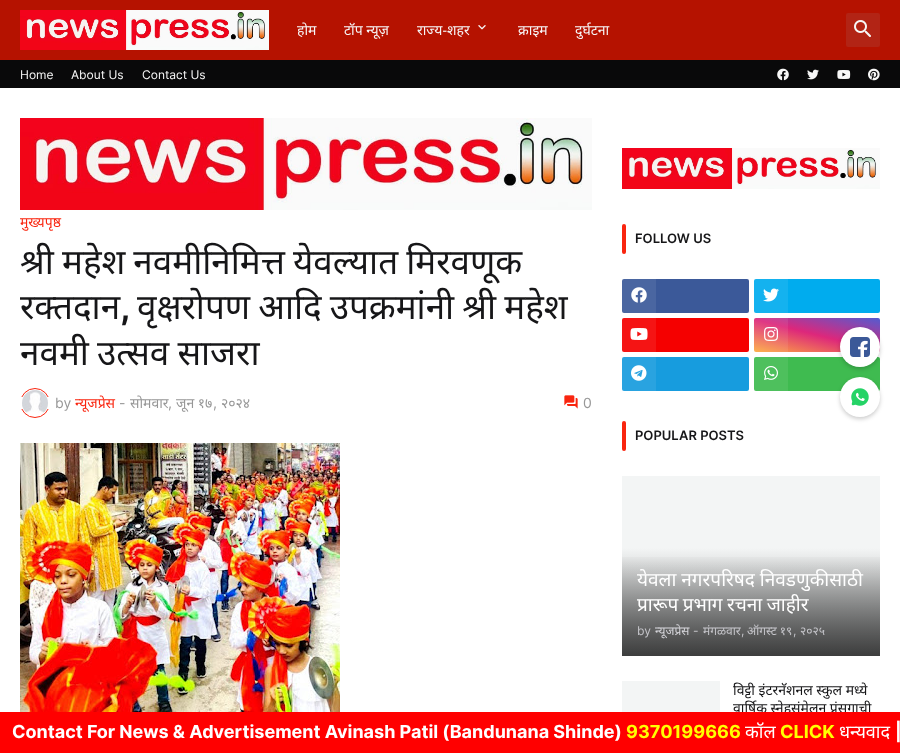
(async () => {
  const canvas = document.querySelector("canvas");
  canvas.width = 900;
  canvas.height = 753;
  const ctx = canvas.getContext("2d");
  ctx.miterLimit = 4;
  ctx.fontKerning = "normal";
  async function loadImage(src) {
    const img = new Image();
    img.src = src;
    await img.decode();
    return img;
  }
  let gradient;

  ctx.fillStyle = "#ffffff";
  ctx.fillRect(0, 0, 900, 753);
  ctx.fillStyle = "#b51200";
  ctx.fillRect(0, 0, 900, 60);
  ctx.drawImage(await loadImage("img/1.png"), 20, 10, 249, 40);
  ctx.drawImage(await loadImage("img/2.png"), 478, 25, 8, 5);
  ctx.fillStyle = "#b22415";
  ctx.beginPath();
  ctx.roundRect(846, 13, 34, 34, 2);
  ctx.fill();
  ctx.drawImage(await loadImage("img/3.png"), 854, 20, 17, 17);
  ctx.fillStyle = "#09090a";
  ctx.fillRect(0, 60, 900, 28);
  ctx.drawImage(await loadImage("img/4.png"), 777, 68, 12, 13);
  ctx.drawImage(await loadImage("img/5.png"), 807, 69, 12, 11);
  ctx.drawImage(await loadImage("img/6.png"), 837, 70, 14, 9);
  ctx.drawImage(await loadImage("img/7.png"), 868, 68, 12, 13);
  ctx.drawImage(await loadImage("img/8.png"), 20, 118, 572, 92);
  ctx.beginPath();
  ctx.arc(35, 403, 14.5, 0, Math.PI * 2);
  ctx.strokeStyle = "#f9250f";
  ctx.stroke();
  ctx.fillStyle = "#ffffff";
  ctx.fillRect(20, 397, 30, 12);
  ctx.drawImage(await loadImage("img/9.png"), 22, 390, 26, 23);
  ctx.drawImage(await loadImage("img/10.png"), 564, 395, 14, 14);
  ctx.drawImage(await loadImage("img/11.png"), 20, 443, 320, 269);
  ctx.drawImage(await loadImage("img/12.png"), 622, 148, 258, 41);
  ctx.fillStyle = "#f9250f";
  ctx.beginPath();
  ctx.roundRect(622, 224, 4, 30, 2);
  ctx.fill();
  ctx.fillStyle = "#3b5999";
  ctx.beginPath();
  ctx.roundRect(622, 279, 127, 34, 2);
  ctx.fill();
  ctx.fillStyle = "rgba(255, 255, 255, 0.08)";
  ctx.fillRect(622, 279, 34, 34);
  ctx.drawImage(await loadImage("img/13.png"), 631, 287, 16, 16);
  ctx.fillStyle = "#00acee";
  ctx.beginPath();
  ctx.roundRect(754, 279, 126, 34, 2);
  ctx.fill();
  ctx.fillStyle = "rgba(255, 255, 255, 0.08)";
  ctx.fillRect(754, 279, 34, 34);
  ctx.drawImage(await loadImage("img/14.png"), 763, 288, 16, 14);
  ctx.fillStyle = "#f50000";
  ctx.beginPath();
  ctx.roundRect(622, 318, 127, 34, 2);
  ctx.fill();
  ctx.fillStyle = "rgba(255, 255, 255, 0.08)";
  ctx.fillRect(622, 318, 34, 34);
  ctx.drawImage(await loadImage("img/15.png"), 630, 328, 18, 12);
  gradient = ctx.createLinearGradient(809, 367, 825, 303);
  gradient.addColorStop(0, "#ffb13d");
  gradient.addColorStop(0.5, "#dd277b");
  gradient.addColorStop(1, "#4d5ed4");
  ctx.fillStyle = gradient;
  ctx.beginPath();
  ctx.roundRect(754, 318, 126, 34, 2);
  ctx.fill();
  ctx.fillStyle = "rgba(255, 255, 255, 0.08)";
  ctx.fillRect(754, 318, 34, 34);
  ctx.drawImage(await loadImage("img/16.png"), 764, 327, 15, 14);
  ctx.fillStyle = "#179cde";
  ctx.beginPath();
  ctx.roundRect(622, 357, 127, 34, 2);
  ctx.fill();
  ctx.fillStyle = "rgba(255, 255, 255, 0.08)";
  ctx.fillRect(622, 357, 34, 34);
  ctx.drawImage(await loadImage("img/17.png"), 631, 365, 16, 16);
  ctx.fillStyle = "#3fbb50";
  ctx.beginPath();
  ctx.roundRect(754, 357, 126, 34, 2);
  ctx.fill();
  ctx.fillStyle = "rgba(255, 255, 255, 0.08)";
  ctx.fillRect(754, 357, 34, 34);
  ctx.drawImage(await loadImage("img/18.png"), 764, 366, 14, 14);
  ctx.fillStyle = "rgba(0, 0, 0, 0.2)";
  ctx.filter = "blur(2px)";
  ctx.beginPath();
  ctx.roundRect(840, 329, 40, 40, 20);
  ctx.fill();
  ctx.filter = "none";
  ctx.fillStyle = "#ffffff";
  ctx.beginPath();
  ctx.arc(860, 347, 20, 0, Math.PI * 2);
  ctx.fill();
  ctx.drawImage(await loadImage("img/19.png"), 850, 337, 20, 20);
  ctx.fillStyle = "rgba(0, 0, 0, 0.2)";
  ctx.filter = "blur(2px)";
  ctx.beginPath();
  ctx.roundRect(840, 379, 40, 40, 20);
  ctx.fill();
  ctx.filter = "none";
  ctx.fillStyle = "#ffffff";
  ctx.beginPath();
  ctx.arc(860, 397, 20, 0, Math.PI * 2);
  ctx.fill();
  ctx.drawImage(await loadImage("img/20.png"), 851, 388, 18, 18);
  ctx.fillStyle = "#f9250f";
  ctx.beginPath();
  ctx.roundRect(622, 421, 4, 30, 2);
  ctx.fill();
  ctx.fillStyle = "#f3f5f5";
  ctx.fillRect(622, 476, 258, 36);
  gradient = ctx.createLinearGradient(751, 512, 751, 656);
  gradient.addColorStop(0.25, "#f3f5f5");
  gradient.addColorStop(1, "#7a7b7b");
  ctx.fillStyle = gradient;
  ctx.fillRect(622, 512, 258, 144);
  gradient = ctx.createLinearGradient(751, 553, 751, 656);
  gradient.addColorStop(0, "rgba(0, 0, 0, 0)");
  gradient.addColorStop(1, "rgba(0, 0, 0, 0.5)");
  ctx.fillStyle = gradient;
  ctx.fillRect(622, 557, 258, 99);
  ctx.fillStyle = "#f3f5f5";
  ctx.fillRect(622, 681, 98, 31);
  ctx.font = "14px Noto Sans";
  ctx.fillStyle = "#f7f7f7";
  for (const [text, x, y] of [
    ["होम", 297, 35],
    ["टॉप न्यूज़", 344, 35],
    ["राज्य-शहर", 417, 35],
    ["क्राइम", 518, 35],
    ["दुर्घटना", 575, 35],
  ]) {
    ctx.fillText(text, x, y);
  }
  ctx.font = "12px Inter";
  for (const [text, x, y] of [
    ["Home", 20, 79],
    ["About Us", 71, 79],
    ["Contact Us", 142, 79],
  ]) {
    ctx.fillText(text, x, y);
  }
  ctx.font = "14px Noto Sans";
  ctx.fillStyle = "#f9250f";
  ctx.fillText("मुख्यपृष्ठ", 20, 227);
  ctx.wordSpacing = "-1px";
  ctx.font = "35px Noto Sans";
  ctx.fillStyle = "#161618";
  ctx.fillText("श्री महेश नवमीनिमित्त येवल्यात मिरवणूक", 20, 274);
  ctx.wordSpacing = "0px";
  ctx.fillText("रक्तदान", 20, 319);
  ctx.font = "bold 35px Inter";
  ctx.fillText(",", 120, 319);
  ctx.wordSpacing = "-1px";
  ctx.font = "35px Noto Sans";
  ctx.fillText("वृक्षरोपण आदि उपक्रमांनी श्री महेश", 137, 319);
  ctx.fillText("नवमी उत्सव साजरा", 20, 365);
  ctx.wordSpacing = "0px";
  ctx.font = "14px Inter";
  ctx.fillStyle = "#979797";
  ctx.fillText("by", 55, 408);
  ctx.font = "14px Noto Sans";
  ctx.fillStyle = "#f9250f";
  ctx.fillText("न्यूजप्रेस", 75, 408);
  ctx.font = "14px Inter";
  ctx.fillStyle = "#979797";
  ctx.fillText("-", 119, 408);
  ctx.font = "14px Noto Sans";
  ctx.fillText("सोमवार", 130, 408);
  ctx.font = "14px Inter";
  ctx.fillText(",", 168, 408);
  ctx.font = "14px Noto Sans";
  ctx.fillText("जून १७", 176, 408);
  ctx.font = "14px Inter";
  ctx.fillText(",", 213, 408);
  ctx.font = "14px Noto Sans";
  ctx.fillText("२०२४", 221, 408);
  ctx.font = "14px Inter";
  ctx.fillText("0", 583, 408);
  ctx.font = "600 13px Inter";
  ctx.fillStyle = "#161618";
  ctx.fillText("FOLLOW US", 635, 243);
  ctx.fillText("POPULAR POSTS", 635, 440);
  ctx.font = "19px Noto Sans";
  ctx.fillStyle = "#ffffff";
  ctx.fillText("येवला नगरपरिषद निवडणुकीसाठी", 637, 586);
  ctx.wordSpacing = "-0.5px";
  ctx.fillText("प्रारूप प्रभाग रचना जाहीर", 637, 611);
  ctx.wordSpacing = "0px";
  ctx.font = "12px Inter";
  ctx.fillStyle = "#c5c5ca";
  ctx.fillText("by", 637, 635);
  ctx.font = "12px Noto Sans";
  ctx.fillStyle = "#d5d5da";
  ctx.fillText("न्यूजप्रेस", 655, 635);
  ctx.font = "12px Inter";
  ctx.fillStyle = "#c5c5ca";
  ctx.fillText("-", 693, 635);
  ctx.font = "12px Noto Sans";
  ctx.fillText("मंगळवार", 703, 635);
  ctx.font = "12px Inter";
  ctx.fillText(",", 741, 635);
  ctx.font = "12px Noto Sans";
  ctx.fillText("ऑगस्ट १९", 747, 635);
  ctx.font = "12px Inter";
  ctx.fillText(",", 793, 635);
  ctx.font = "12px Noto Sans";
  ctx.fillText("२०२५", 800, 635);
  ctx.font = "14px Noto Sans";
  ctx.fillStyle = "#161618";
  ctx.fillText("विट्टी इंटरनॅशनल स्कुल मध्ये", 733, 695);
  ctx.fillText("वार्षिक स्नेहसंमेलन प्रंसगाची", 733, 713);
  ctx.fillStyle = "#ff0000";
  ctx.fillRect(0, 712, 900, 41);
  ctx.font = "bold 18px Inter";
  ctx.fillStyle = "#ffffff";
  ctx.fillText("Contact For News & Advertisement Avinash Patil (Bandunana Shinde)", 12, 738);
  ctx.fillStyle = "#ffff00";
  ctx.fillText("9370199666", 626, 738);
  ctx.font = "18px Noto Sans";
  ctx.fillStyle = "#ffffff";
  ctx.fillText("कॉल", 745, 738);
  ctx.font = "bold 18px Inter";
  ctx.fillStyle = "#ffff00";
  ctx.fillText("CLICK", 780, 738);
  ctx.font = "18px Noto Sans";
  ctx.fillStyle = "#ffffff";
  ctx.fillText("धन्यवाद", 839, 738);
  ctx.font = "bold 18px Inter";
  ctx.fillText("|", 895, 738);
})();
